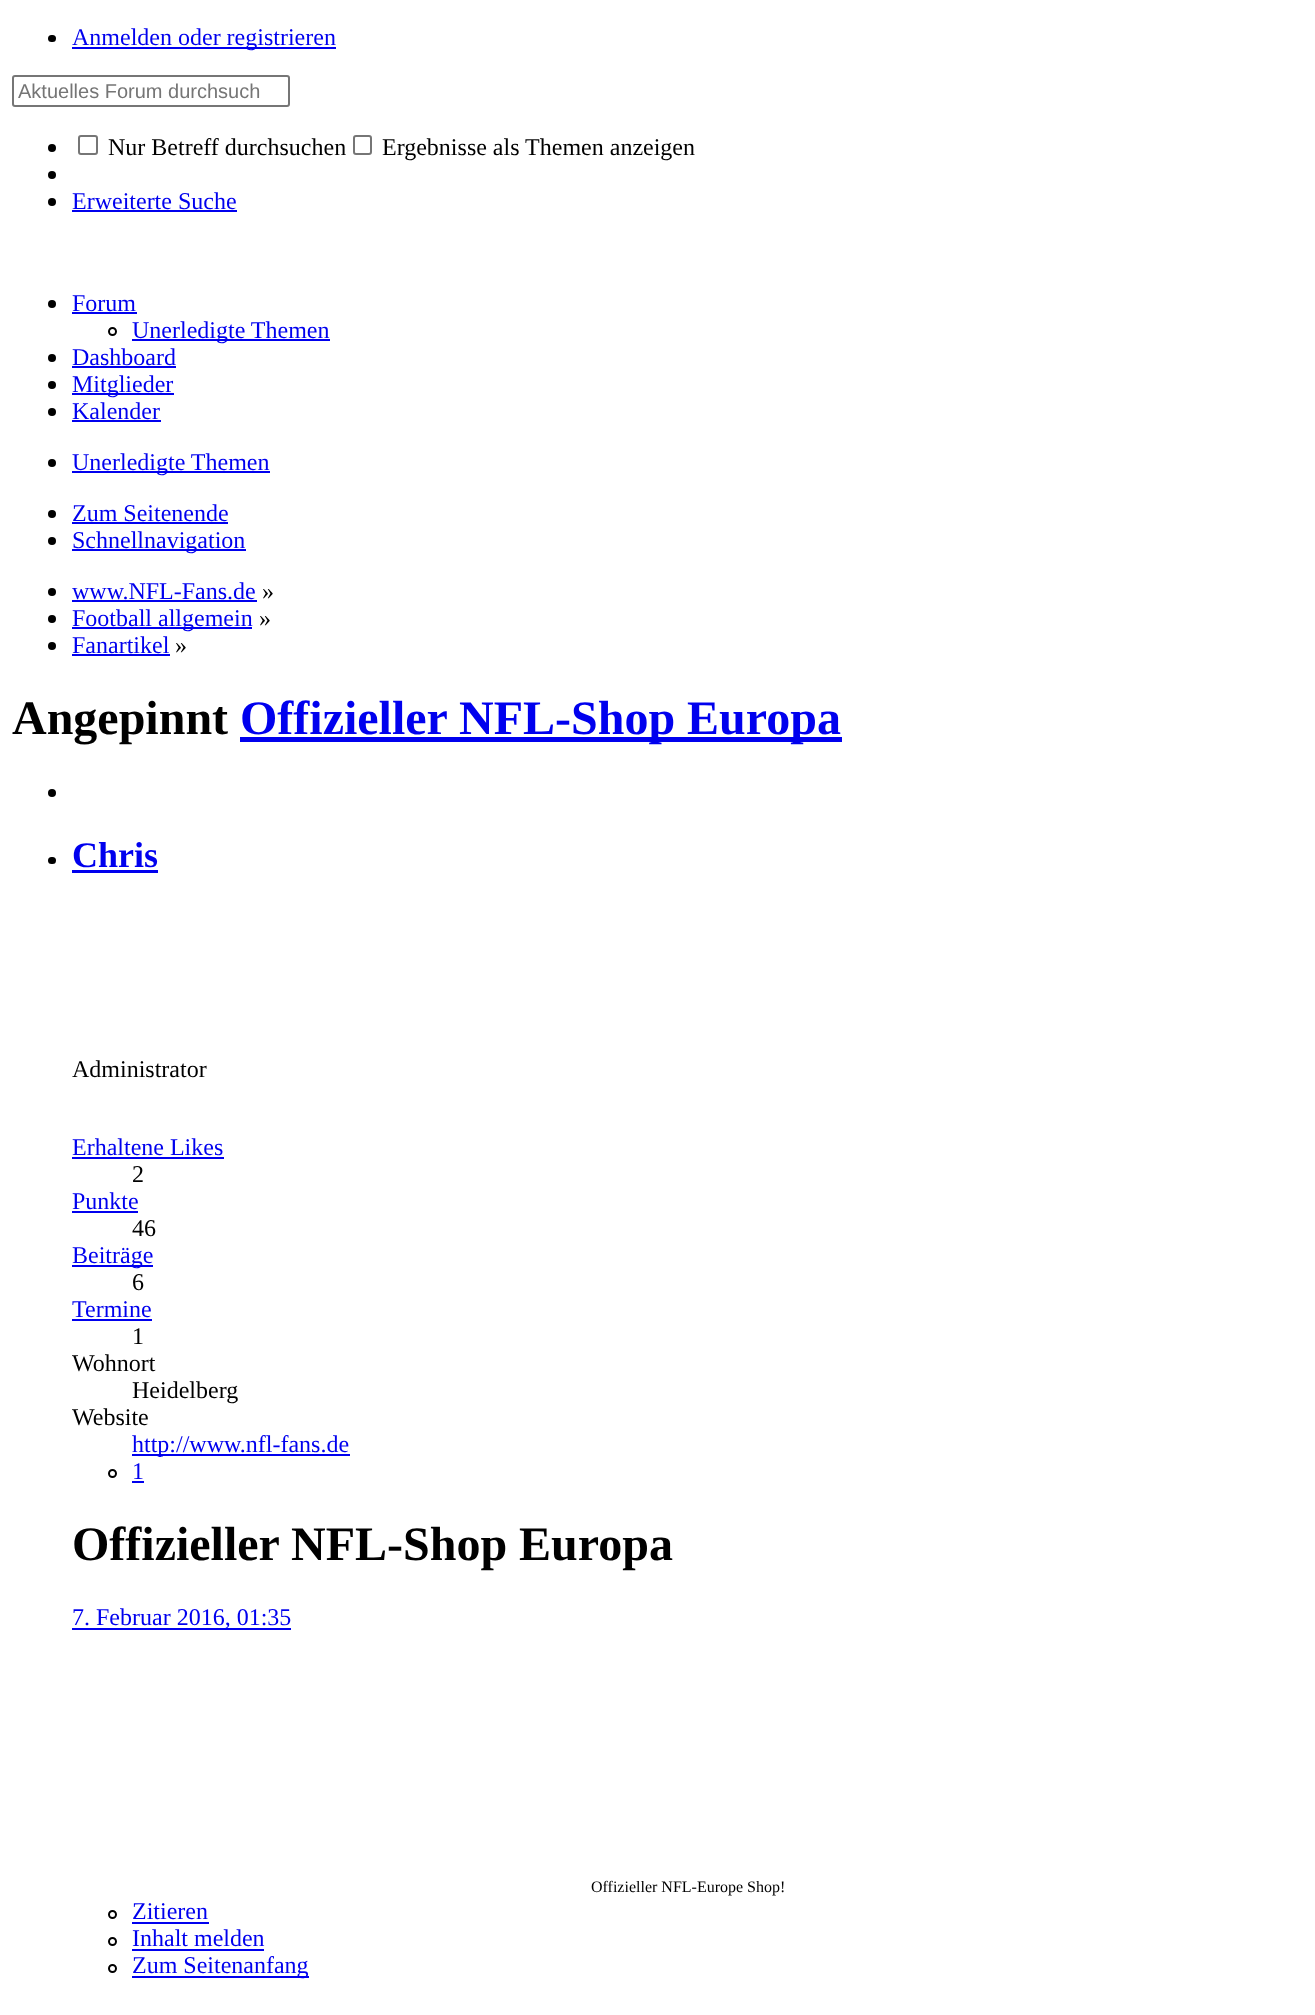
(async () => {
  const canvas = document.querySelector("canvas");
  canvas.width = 1315;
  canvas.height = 2015;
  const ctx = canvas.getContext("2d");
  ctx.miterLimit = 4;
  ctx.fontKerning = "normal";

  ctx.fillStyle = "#ffffff";
  ctx.fillRect(0, 0, 1315, 2015);
  ctx.fillStyle = "#000000";
  ctx.beginPath();
  ctx.roundRect(48, 35, 8, 7, 3.5);
  ctx.fill();
  ctx.fillStyle = "#0000ee";
  ctx.fillRect(72, 47, 264, 2);
  ctx.beginPath();
  ctx.roundRect(13, 76, 276, 30, 2);
  ctx.strokeStyle = "#767676";
  ctx.lineWidth = 2;
  ctx.stroke();
  ctx.fillStyle = "#000000";
  ctx.beginPath();
  ctx.arc(52, 148, 4, 0, Math.PI * 2);
  ctx.fill();
  ctx.beginPath();
  ctx.roundRect(79, 136, 18, 18, 2);
  ctx.stroke();
  ctx.beginPath();
  ctx.roundRect(354, 136, 17, 18, 2);
  ctx.stroke();
  ctx.beginPath();
  ctx.arc(52, 175, 4, 0, Math.PI * 2);
  ctx.fill();
  ctx.beginPath();
  ctx.arc(52, 202, 4, 0, Math.PI * 2);
  ctx.fill();
  ctx.fillStyle = "#0000ee";
  ctx.fillRect(72, 210, 165, 2);
  ctx.fillStyle = "#000000";
  ctx.beginPath();
  ctx.arc(52, 304, 4, 0, Math.PI * 2);
  ctx.fill();
  ctx.fillStyle = "#0000ee";
  ctx.fillRect(72, 312, 65, 2);
  ctx.beginPath();
  ctx.arc(112.5, 331.5, 3.5, 0, Math.PI * 2);
  ctx.strokeStyle = "#000000";
  ctx.stroke();
  ctx.fillRect(132, 339, 198, 2);
  ctx.fillStyle = "#000000";
  ctx.beginPath();
  ctx.arc(52, 358, 4, 0, Math.PI * 2);
  ctx.fill();
  ctx.fillStyle = "#0000ee";
  ctx.fillRect(72, 366, 104, 2);
  ctx.fillStyle = "#000000";
  ctx.beginPath();
  ctx.arc(52, 385, 4, 0, Math.PI * 2);
  ctx.fill();
  ctx.fillStyle = "#0000ee";
  ctx.fillRect(72, 393, 102, 2);
  ctx.fillStyle = "#000000";
  ctx.beginPath();
  ctx.arc(52, 412, 4, 0, Math.PI * 2);
  ctx.fill();
  ctx.fillStyle = "#0000ee";
  ctx.fillRect(72, 420, 89, 2);
  ctx.fillStyle = "#000000";
  ctx.beginPath();
  ctx.arc(52, 463, 4, 0, Math.PI * 2);
  ctx.fill();
  ctx.fillStyle = "#0000ee";
  ctx.fillRect(72, 471, 198, 2);
  ctx.fillStyle = "#000000";
  ctx.beginPath();
  ctx.arc(52, 514, 4, 0, Math.PI * 2);
  ctx.fill();
  ctx.fillStyle = "#0000ee";
  ctx.fillRect(72, 522, 156, 2);
  ctx.fillStyle = "#000000";
  ctx.beginPath();
  ctx.arc(52, 541, 4, 0, Math.PI * 2);
  ctx.fill();
  ctx.fillStyle = "#0000ee";
  ctx.fillRect(72, 549, 174, 2);
  ctx.fillStyle = "#000000";
  ctx.beginPath();
  ctx.arc(52, 592, 4, 0, Math.PI * 2);
  ctx.fill();
  ctx.fillStyle = "#0000ee";
  ctx.fillRect(72, 600, 185, 2);
  ctx.fillStyle = "#000000";
  ctx.beginPath();
  ctx.arc(52, 619, 4, 0, Math.PI * 2);
  ctx.fill();
  ctx.fillStyle = "#0000ee";
  ctx.fillRect(72, 627, 180, 2);
  ctx.fillStyle = "#000000";
  ctx.beginPath();
  ctx.arc(52, 646, 4, 0, Math.PI * 2);
  ctx.fill();
  ctx.fillStyle = "#0000ee";
  ctx.fillRect(72, 654, 98, 2);
  ctx.fillRect(240, 737, 602, 5);
  ctx.fillStyle = "#000000";
  ctx.beginPath();
  ctx.arc(52, 793, 4, 0, Math.PI * 2);
  ctx.fill();
  ctx.beginPath();
  ctx.roundRect(48, 857, 8, 7, 3.5);
  ctx.fill();
  for (const [x, y, w, h, color] of [
    [72, 870, 86, 3, "#0000ee"],
    [72, 1157, 152, 2, "#0000ee"],
    [72, 1211, 66, 2, "#0000ee"],
    [72, 1265, 81, 2, "#0000ee"],
    [72, 1319, 80, 2, "#0000ee"],
    [132, 1454, 218, 2, "#0000ee"],
  ]) {
    ctx.fillStyle = color;
    ctx.fillRect(x, y, w, h);
  }
  ctx.beginPath();
  ctx.arc(112.5, 1473.5, 3.5, 0, Math.PI * 2);
  ctx.stroke();
  ctx.fillRect(132, 1481, 12, 2);
  ctx.fillRect(72, 1628, 219, 2);
  ctx.beginPath();
  ctx.arc(112.5, 1914.5, 3.5, 0, Math.PI * 2);
  ctx.stroke();
  ctx.fillRect(132, 1922, 77, 2);
  ctx.beginPath();
  ctx.arc(112.5, 1941.5, 3.5, 0, Math.PI * 2);
  ctx.stroke();
  ctx.fillRect(132, 1949, 132, 2);
  ctx.beginPath();
  ctx.arc(112.5, 1968.5, 3.5, 0, Math.PI * 2);
  ctx.stroke();
  ctx.fillRect(132, 1976, 177, 2);
  ctx.font = "24px Liberation Serif";
  ctx.fillText("Anmelden oder registrieren", 72, 45);
  ctx.font = "20px Liberation Sans";
  ctx.fillStyle = "#757575";
  ctx.fillText("Aktuelles Forum durchsuch", 18, 98);
  ctx.font = "24px Liberation Serif";
  ctx.fillStyle = "#000000";
  ctx.fillText("Nur Betreff durchsuchen", 108, 155);
  ctx.fillText("Ergebnisse als Themen anzeigen", 382, 155);
  ctx.fillStyle = "#0000ee";
  for (const [text, x, y] of [
    ["Erweiterte Suche", 72, 209],
    ["Forum", 72, 311],
    ["Unerledigte Themen", 132, 338],
    ["Dashboard", 72, 365],
    ["Mitglieder", 72, 392],
    ["Kalender", 72, 419],
    ["Unerledigte Themen", 72, 470],
    ["Zum Seitenende", 72, 521],
    ["Schnellnavigation", 72, 548],
    ["www.NFL-Fans.de", 72, 599],
  ]) {
    ctx.fillText(text, x, y);
  }
  ctx.fillStyle = "#000000";
  ctx.fillText("»", 262, 599);
  ctx.fillStyle = "#0000ee";
  ctx.fillText("Football allgemein", 72, 626);
  ctx.fillStyle = "#000000";
  ctx.fillText("»", 259, 626);
  ctx.fillStyle = "#0000ee";
  ctx.fillText("Fanartikel", 72, 653);
  ctx.fillStyle = "#000000";
  ctx.fillText("»", 175, 653);
  ctx.font = "bold 48px Liberation Serif";
  ctx.fillText("Angepinnt", 12, 734);
  ctx.fillStyle = "#0000ee";
  ctx.fillText("Offizieller NFL-Shop Europa", 240, 734);
  ctx.font = "bold 36px Liberation Serif";
  ctx.fillText("Chris", 72, 867);
  ctx.font = "24px Liberation Serif";
  ctx.fillStyle = "#000000";
  ctx.fillText("Administrator", 72, 1077);
  ctx.fillStyle = "#0000ee";
  ctx.fillText("Erhaltene Likes", 72, 1155);
  ctx.fillStyle = "#000000";
  ctx.fillText("2", 132, 1182);
  ctx.fillStyle = "#0000ee";
  ctx.fillText("Punkte", 72, 1209);
  ctx.fillStyle = "#000000";
  ctx.fillText("46", 132, 1236);
  ctx.fillStyle = "#0000ee";
  ctx.fillText("Beiträge", 72, 1263);
  ctx.fillStyle = "#000000";
  ctx.fillText("6", 132, 1290);
  ctx.fillStyle = "#0000ee";
  ctx.fillText("Termine", 72, 1317);
  ctx.fillStyle = "#000000";
  for (const [text, x, y] of [
    ["1", 132, 1344],
    ["Wohnort", 72, 1371],
    ["Heidelberg", 132, 1398],
    ["Website", 72, 1425],
  ]) {
    ctx.fillText(text, x, y);
  }
  ctx.fillStyle = "#0000ee";
  ctx.fillText("http://www.nfl-fans.de", 132, 1452);
  ctx.fillText("1", 132, 1479);
  ctx.font = "bold 48px Liberation Serif";
  ctx.fillStyle = "#000000";
  ctx.fillText("Offizieller NFL-Shop Europa", 72, 1560);
  ctx.font = "24px Liberation Serif";
  ctx.fillStyle = "#0000ee";
  ctx.fillText("7. Februar 2016, 01:35", 72, 1625);
  ctx.font = "16px Liberation Serif";
  ctx.fillStyle = "#000000";
  ctx.fillText("Offizieller NFL-Europe Shop!", 591, 1892);
  ctx.font = "24px Liberation Serif";
  ctx.fillStyle = "#0000ee";
  for (const [text, x, y] of [
    ["Zitieren", 132, 1919],
    ["Inhalt melden", 132, 1946],
    ["Zum Seitenanfang", 132, 1973],
  ]) {
    ctx.fillText(text, x, y);
  }
})();
